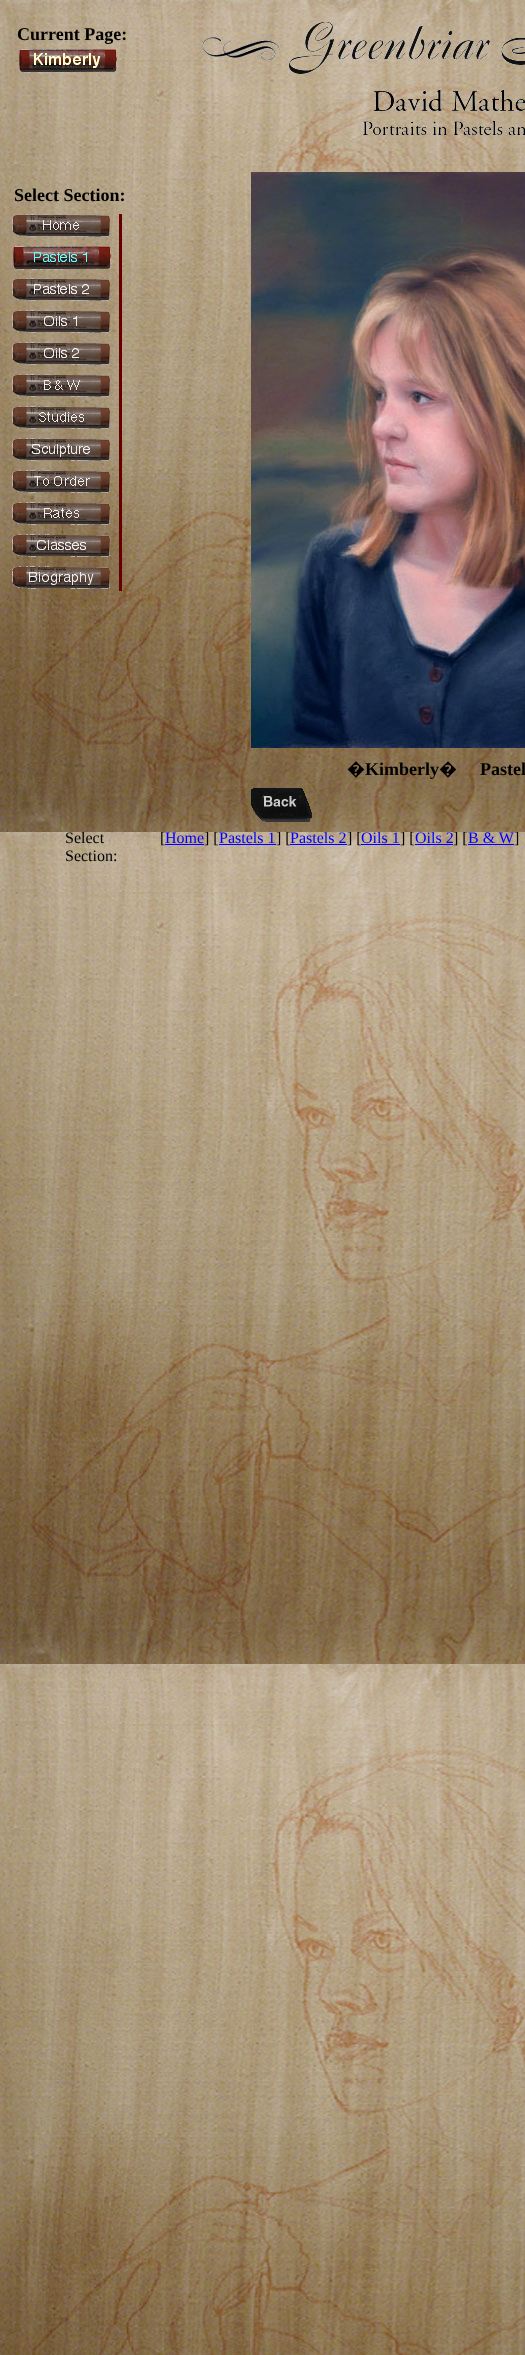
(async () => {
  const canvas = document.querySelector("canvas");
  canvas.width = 525;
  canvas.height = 2355;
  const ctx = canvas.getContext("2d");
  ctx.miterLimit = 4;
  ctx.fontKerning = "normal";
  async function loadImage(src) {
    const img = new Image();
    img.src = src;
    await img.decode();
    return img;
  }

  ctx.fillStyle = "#ffffff";
  ctx.fillRect(0, 0, 525, 2355);
  ctx.drawImage(await loadImage("img/1.png"), 0, 0, 525, 2355);
  ctx.drawImage(await loadImage("img/2.png"), 19, 49, 98, 24);
  ctx.drawImage(await loadImage("img/3.png"), 12, 214, 98, 23);
  ctx.drawImage(await loadImage("img/4.png"), 13, 246, 98, 24);
  ctx.drawImage(await loadImage("img/5.png"), 12, 278, 98, 23);
  ctx.drawImage(await loadImage("img/6.png"), 12, 310, 98, 23);
  ctx.drawImage(await loadImage("img/7.png"), 12, 342, 98, 23);
  ctx.drawImage(await loadImage("img/8.png"), 12, 374, 98, 23);
  ctx.drawImage(await loadImage("img/9.png"), 12, 406, 98, 23);
  ctx.drawImage(await loadImage("img/10.png"), 12, 438, 98, 23);
  ctx.drawImage(await loadImage("img/11.png"), 12, 470, 98, 23);
  ctx.drawImage(await loadImage("img/12.png"), 12, 502, 98, 23);
  ctx.drawImage(await loadImage("img/13.png"), 12, 534, 98, 23);
  ctx.drawImage(await loadImage("img/14.png"), 12, 566, 98, 23);
  ctx.fillStyle = "#660000";
  ctx.fillRect(119, 214, 3, 377);
  ctx.drawImage(await loadImage("img/15.png"), 202, 22, 323, 113);
  ctx.drawImage(await loadImage("img/16.png"), 251, 172, 274, 576);
  ctx.drawImage(await loadImage("img/17.png"), 251, 788, 61, 34);
  for (const [x, y, w, h, color] of [
    [165, 844, 39, 1, "#0000ff"],
    [219, 844, 57, 1, "#0000ff"],
    [290, 844, 57, 1, "#0000ff"],
    [361, 844, 39, 1, "#0000ff"],
    [415, 844, 38, 1, "#0000ff"],
    [468, 844, 46, 1, "#0000ff"],
  ]) {
    ctx.fillStyle = color;
    ctx.fillRect(x, y, w, h);
  }
  ctx.font = "bold 18px Liberation Serif";
  ctx.fillStyle = "#000000";
  ctx.fillText("Current Page:", 17, 40);
  ctx.fillText("Select Section:", 14, 201);
  ctx.font = "bold 18px Noto Sans";
  ctx.fillText("�", 347, 775);
  ctx.font = "bold 18px Liberation Serif";
  ctx.fillText("Kimberly", 365, 775);
  ctx.font = "bold 18px Noto Sans";
  ctx.fillText("�", 439, 775);
  ctx.font = "bold 18px Liberation Serif";
  ctx.fillText("Pastel", 480, 775);
  ctx.font = "16px Liberation Serif";
  for (const [text, x, y] of [
    ["Select", 65, 843],
    ["Section:", 65, 861],
    ["[", 160, 843],
  ]) {
    ctx.fillText(text, x, y);
  }
  ctx.fillStyle = "#0000ff";
  ctx.fillText("Home", 165, 843);
  ctx.fillStyle = "#000000";
  ctx.fillText("] [", 204, 843);
  ctx.fillStyle = "#0000ff";
  ctx.fillText("Pastels 1", 219, 843);
  ctx.fillStyle = "#000000";
  ctx.fillText("] [", 276, 843);
  ctx.fillStyle = "#0000ff";
  ctx.fillText("Pastels 2", 290, 843);
  ctx.fillStyle = "#000000";
  ctx.fillText("] [", 347, 843);
  ctx.fillStyle = "#0000ff";
  ctx.fillText("Oils 1", 361, 843);
  ctx.fillStyle = "#000000";
  ctx.fillText("] [", 400, 843);
  ctx.fillStyle = "#0000ff";
  ctx.fillText("Oils 2", 415, 843);
  ctx.fillStyle = "#000000";
  ctx.fillText("] [", 453, 843);
  ctx.fillStyle = "#0000ff";
  ctx.fillText("B & W", 468, 843);
  ctx.fillStyle = "#000000";
  ctx.fillText("]", 514, 843);
})();
